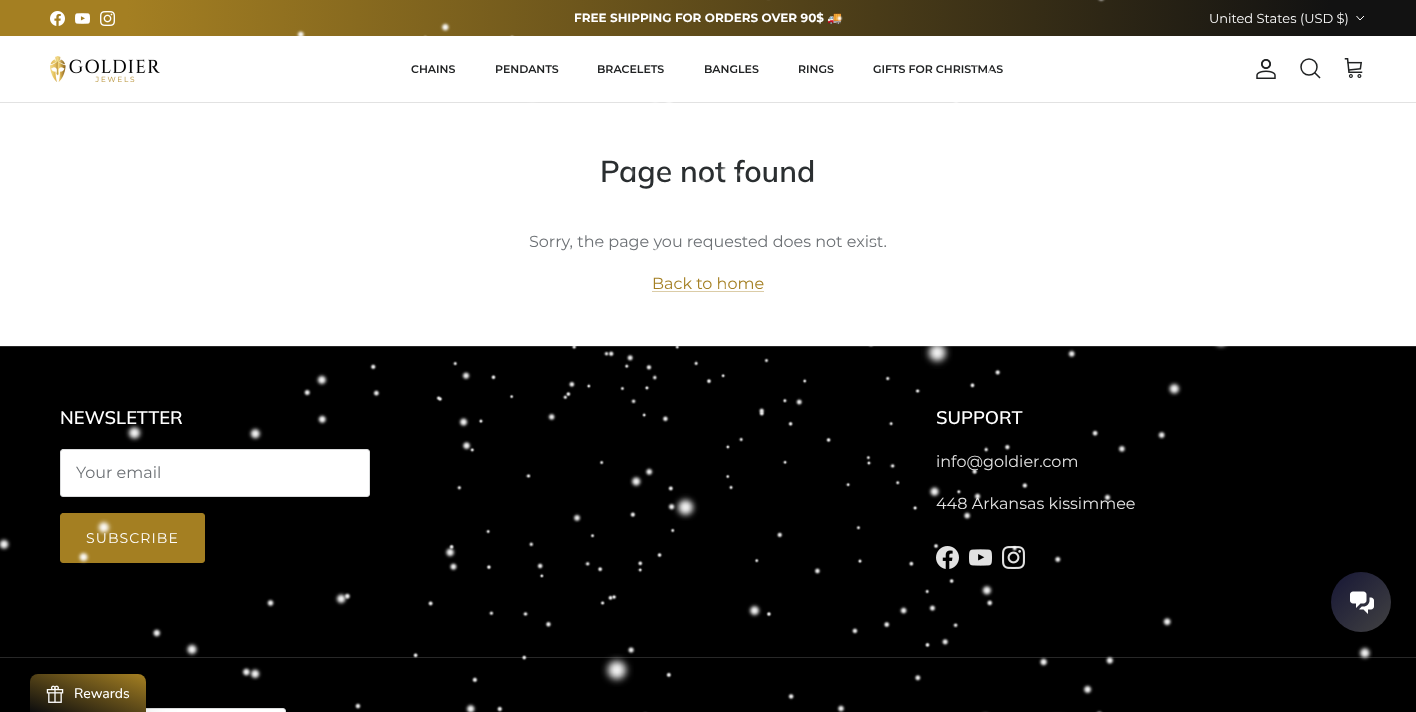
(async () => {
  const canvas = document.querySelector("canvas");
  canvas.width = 1416;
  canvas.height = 712;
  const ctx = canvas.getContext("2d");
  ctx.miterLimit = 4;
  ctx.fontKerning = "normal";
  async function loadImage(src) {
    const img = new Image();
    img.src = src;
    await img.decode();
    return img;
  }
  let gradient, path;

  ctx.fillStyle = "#ffffff";
  ctx.fillRect(0, 0, 1416, 712);
  gradient = ctx.createLinearGradient(-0.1, 30, 1416, 5.6);
  gradient.addColorStop(0.09, "#a47f22");
  gradient.addColorStop(0.94, "#121212");
  ctx.fillStyle = gradient;
  ctx.fillRect(0, 0, 1416, 36);
  ctx.drawImage(await loadImage("img/2.png"), 50, 11, 15, 15);
  ctx.drawImage(await loadImage("img/3.png"), 75, 13, 15, 11);
  ctx.drawImage(await loadImage("img/4.png"), 100, 11, 15, 15);
  path = new Path2D("M1364 16L1360 20L1356.5 16");
  ctx.strokeStyle = "#ffffff";
  ctx.stroke(path);
  ctx.fillStyle = "#e2e2e2";
  ctx.fillRect(0, 102, 1416, 1);
  ctx.drawImage(await loadImage("img/5.png"), 50, 56, 110, 26);
  ctx.drawImage(await loadImage("img/6.png"), 1256, 59, 20, 20);
  ctx.beginPath();
  ctx.arc(1309, 67, 8, 0, Math.PI * 2);
  ctx.strokeStyle = "#202223";
  ctx.lineWidth = 1.5;
  ctx.stroke();
  path = new Path2D("M1315 73L1319.5 77.5");
  ctx.lineCap = "square";
  ctx.stroke(path);
  ctx.drawImage(await loadImage("img/7.png"), 1344, 58, 19, 20);
  for (const [x, y, w, h, color] of [
    [652, 291, 112, 1, "#dbcca7"],
    [0, 347, 1416, 365, "#000000"],
    [0, 346, 1416, 1, "#282828"],
  ]) {
    ctx.fillStyle = color;
    ctx.fillRect(x, y, w, h);
  }
  ctx.fillStyle = "#ffffff";
  ctx.beginPath();
  ctx.roundRect(60.5, 449.5, 309, 47, 2.5);
  ctx.fill();
  ctx.strokeStyle = "#dbdcdd";
  ctx.lineWidth = 1;
  ctx.stroke();
  ctx.fillStyle = "#a47f22";
  ctx.beginPath();
  ctx.roundRect(60.5, 513.5, 144, 49, 2.5);
  ctx.fill();
  ctx.strokeStyle = "#a47f22";
  ctx.stroke();
  ctx.drawImage(await loadImage("img/8.png"), 936, 546, 23, 23);
  ctx.drawImage(await loadImage("img/9.png"), 969, 549, 23, 17);
  ctx.drawImage(await loadImage("img/10.png"), 1002, 546, 23, 23);
  ctx.fillStyle = "#282828";
  ctx.fillRect(0, 657, 1416, 1);
  ctx.fillStyle = "#ffffff";
  ctx.beginPath();
  ctx.roundRect(60.5, 708.5, 225, 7, 2.5);
  ctx.fill();
  ctx.strokeStyle = "#dbdcdd";
  ctx.stroke();
  ctx.font = "bold 12px Montserrat";
  ctx.fillText("FREE SHIPPING FOR ORDERS OVER 90$", 574, 22);
  ctx.font = "12px Noto Color Emoji";
  ctx.fillText("🚚", 827, 22);
  ctx.font = "13px Montserrat";
  ctx.fillText("United States (USD $)", 1209, 23);
  ctx.font = "600 11px Montserrat";
  ctx.fillStyle = "#202223";
  for (const [text, x, y] of [
    ["CHAINS", 411, 73],
    ["PENDANTS", 495, 73],
    ["BRACELETS", 597, 73],
    ["BANGLES", 704, 73],
    ["RINGS", 798, 73],
    ["GIFTS FOR CHRISTMAS", 873, 73],
  ]) {
    ctx.fillText(text, x, y);
  }
  ctx.font = "600 30px Muli";
  ctx.fillStyle = "#2a2e30";
  ctx.fillText("Page not found", 600, 182);
  ctx.font = "16px Montserrat";
  ctx.fillStyle = "#6d7175";
  ctx.fillText("Sorry, the page you requested does not exist.", 529, 247);
  ctx.fillStyle = "#a47f22";
  ctx.fillText("Back to home", 652, 289);
  ctx.font = "600 18.25px Muli";
  ctx.fillStyle = "#ffffff";
  ctx.fillText("NEWSLETTER", 60, 424);
  ctx.font = "16px Montserrat";
  ctx.fillStyle = "#6d7175";
  ctx.fillText("Your email", 76, 478);
  ctx.letterSpacing = "1.1px";
  ctx.font = "14px Montserrat";
  ctx.fillStyle = "#ffffff";
  ctx.fillText("SUBSCRIBE", 86, 543);
  ctx.letterSpacing = "0px";
  ctx.font = "600 18.25px Muli";
  ctx.fillText("SUPPORT", 936, 424);
  ctx.font = "16px Montserrat";
  ctx.fillStyle = "#e2e2e2";
  ctx.fillText("info@goldier.com", 936, 467);
  ctx.fillText("448 Arkansas kissimmee", 936, 509);
  ctx.drawImage(await loadImage("img/1.png"), 0, 0, 1373, 712);
  ctx.drawImage(await loadImage("img/11.png"), 1331, 572, 60, 60);
  ctx.fillStyle = "rgba(0, 0, 0, 0.16)";
  ctx.filter = "blur(16px)";
  ctx.beginPath();
  ctx.roundRect(30, 676, 116, 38, 8);
  ctx.fill();
  ctx.filter = "none";
  ctx.fillStyle = "rgba(0, 0, 0, 0.06)";
  ctx.filter = "blur(3px)";
  ctx.beginPath();
  ctx.roundRect(30, 675, 116, 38, 8);
  ctx.fill();
  ctx.filter = "none";
  gradient = ctx.createLinearGradient(101, 658, 75, 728);
  gradient.addColorStop(0, "#a47f22");
  gradient.addColorStop(1, "#0e0e0e");
  ctx.fillStyle = gradient;
  ctx.beginPath();
  ctx.roundRect(30, 674, 116, 38, [8, 8, 0, 0]);
  ctx.fill();
  ctx.drawImage(await loadImage("img/12.png"), 46, 685, 18, 18);
  ctx.font = "500 14px Nunito";
  ctx.fillStyle = "#ffffff";
  ctx.fillText("Rewards", 74, 698);
})();
